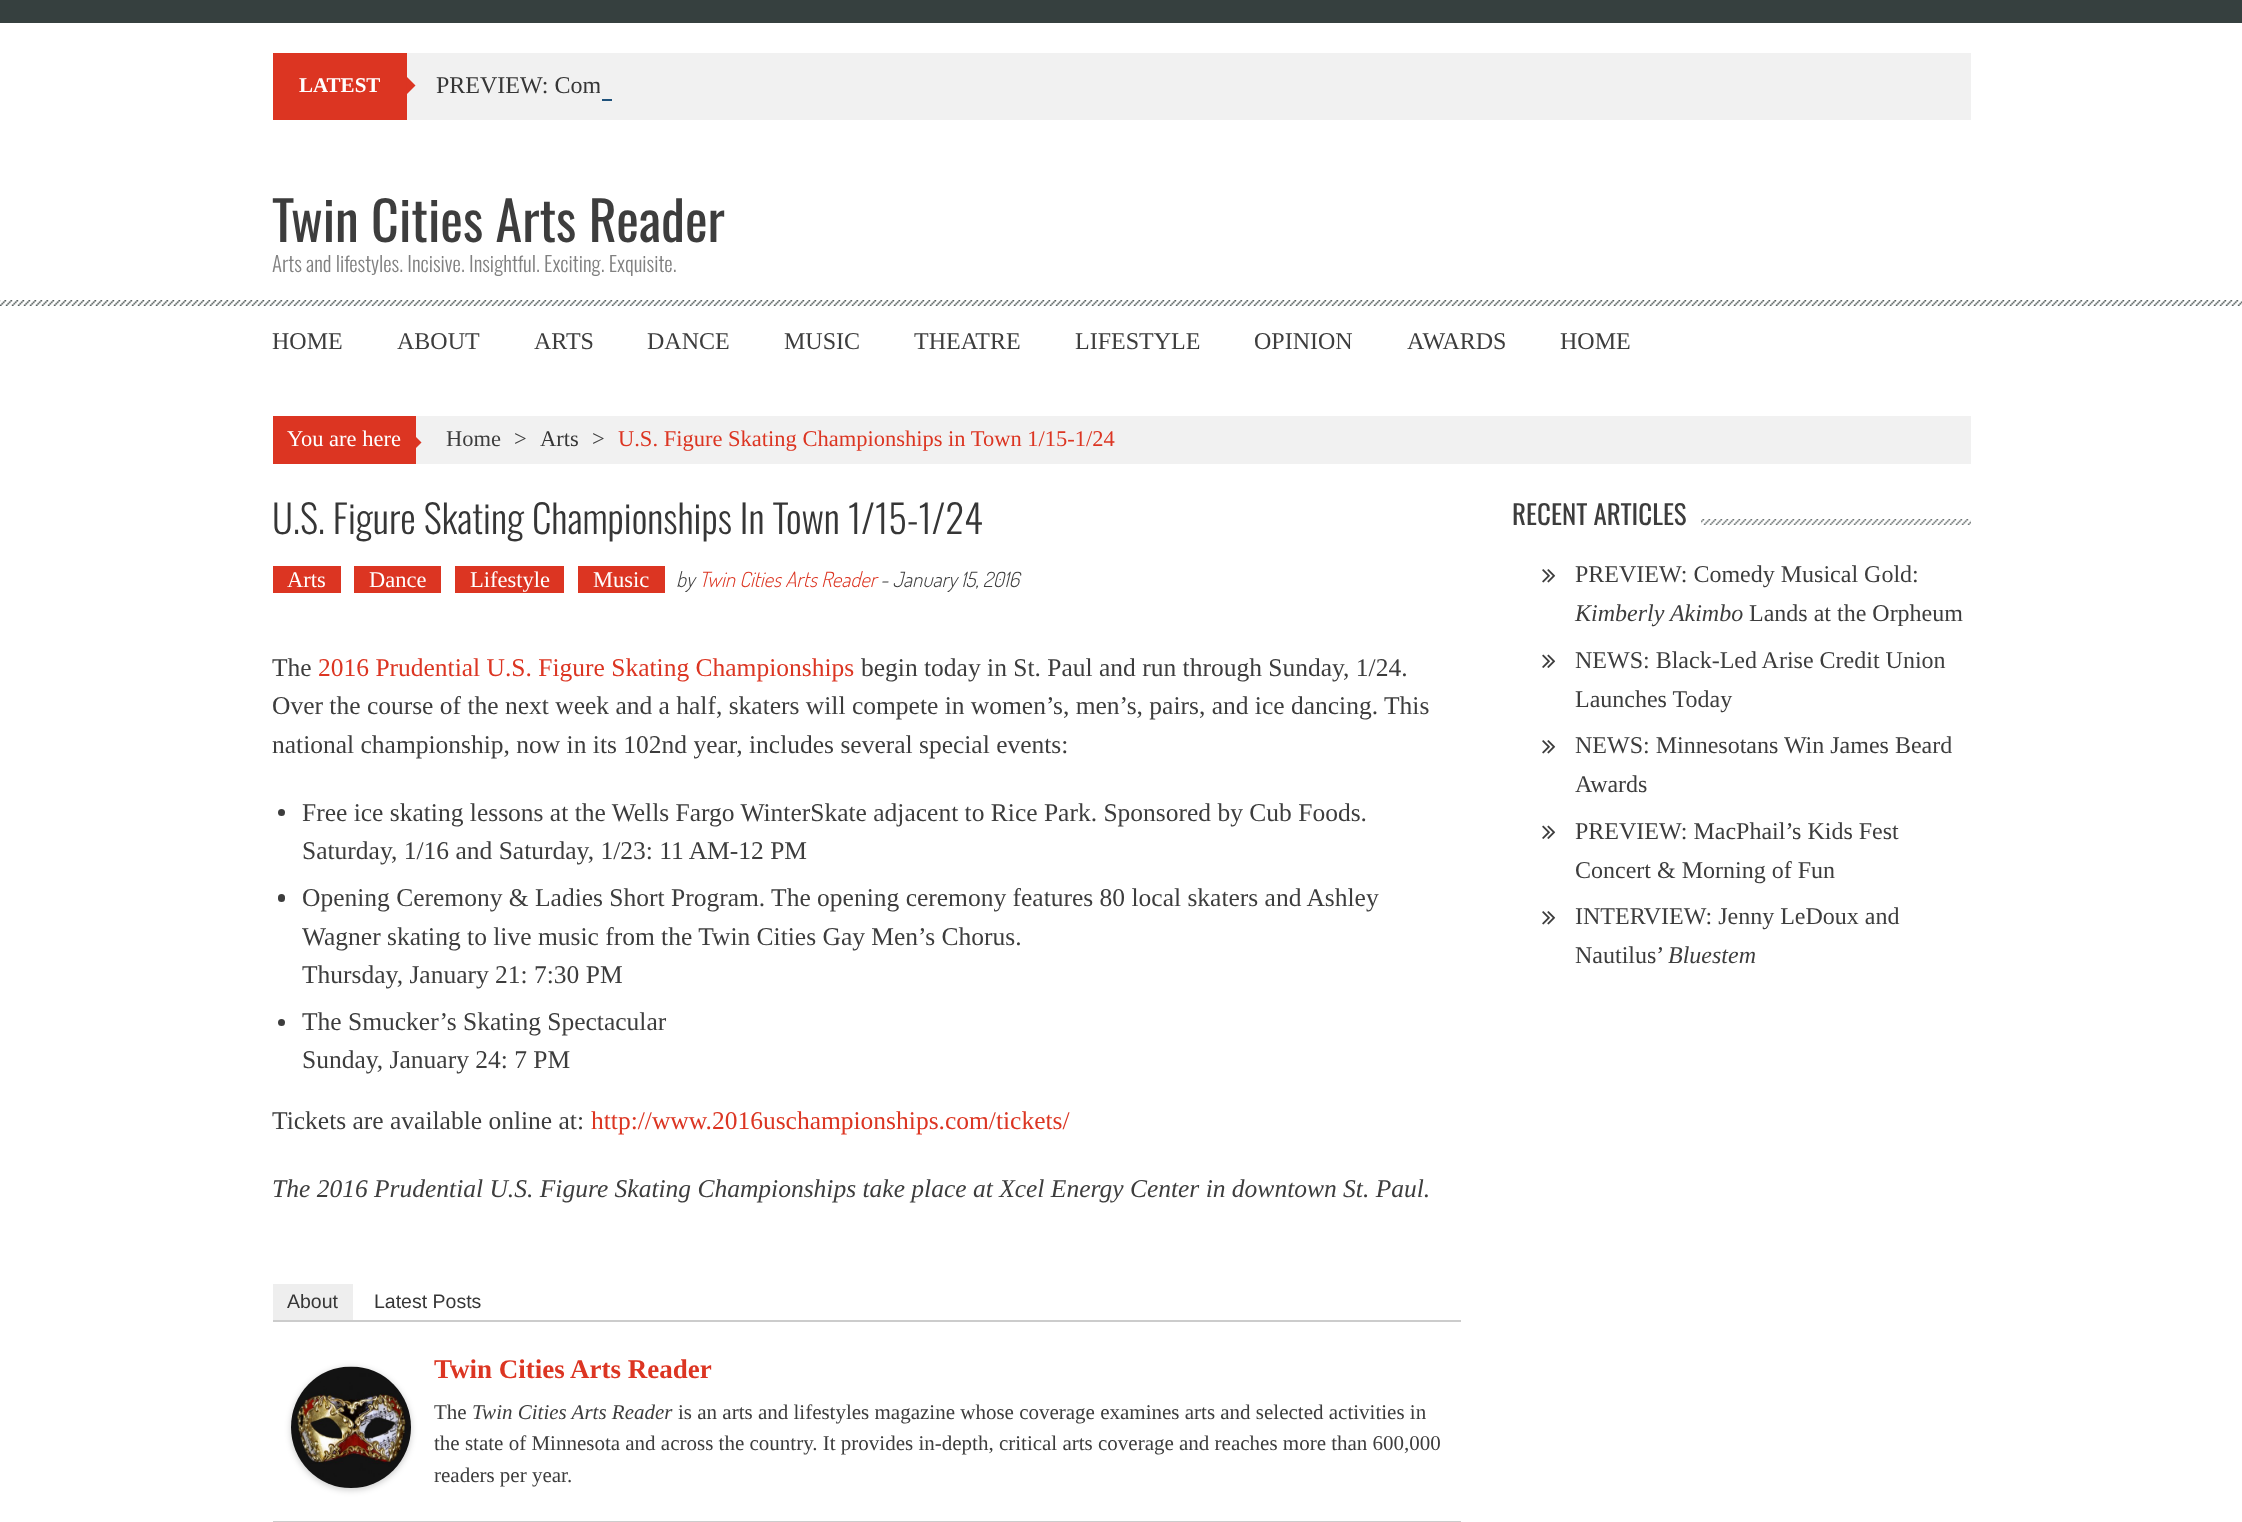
(async () => {
  const canvas = document.querySelector("canvas");
  canvas.width = 2242;
  canvas.height = 1522;
  const ctx = canvas.getContext("2d");
  ctx.miterLimit = 4;
  ctx.fontKerning = "normal";
  async function loadImage(src) {
    const img = new Image();
    img.src = src;
    await img.decode();
    return img;
  }
  let path;

  ctx.fillStyle = "#ffffff";
  ctx.fillRect(0, 0, 2242, 1522);
  for (const [x, y, w, h, color] of [
    [0, 0, 2242, 23, "#36403f"],
    [407, 53, 1564, 67, "#f1f1f1"],
    [273, 53, 134, 67, "#dc3522"],
  ]) {
    ctx.fillStyle = color;
    ctx.fillRect(x, y, w, h);
  }
  path = new Path2D("M406.5 94.5V76.5L415.5 85.5Z");
  ctx.fill(path);
  ctx.fillStyle = "#1f527b";
  ctx.fillRect(602, 99, 10, 2);
  ctx.drawImage(await loadImage("img/1.png"), 0, 300, 2242, 6);
  ctx.fillStyle = "#f1f1f1";
  ctx.fillRect(416, 416, 1555, 48);
  ctx.fillStyle = "#dc3522";
  ctx.fillRect(273, 416, 143, 48);
  path = new Path2D("M414 450V435L421.5 442.5Z");
  ctx.fill(path);
  for (const [x, y, w, h, color] of [
    [273, 566, 68, 27, "#dc3522"],
    [354, 566, 87, 27, "#dc3522"],
    [455, 566, 109, 27, "#dc3522"],
    [578, 566, 87, 27, "#dc3522"],
  ]) {
    ctx.fillStyle = color;
    ctx.fillRect(x, y, w, h);
  }
  ctx.fillStyle = "#3d3d3d";
  ctx.beginPath();
  ctx.arc(281.5, 812.5, 3.5, 0, Math.PI * 2);
  ctx.fill();
  ctx.beginPath();
  ctx.roundRect(278, 894, 7, 8, 3.5);
  ctx.fill();
  ctx.beginPath();
  ctx.arc(281.5, 1022.5, 3.5, 0, Math.PI * 2);
  ctx.fill();
  for (const [x, y, w, h, color] of [
    [273, 1320, 1188, 2, "#cccccc"],
    [273, 1284, 80, 36, "#eeeeee"],
    [273, 1521, 1188, 1, "#cccccc"],
  ]) {
    ctx.fillStyle = color;
    ctx.fillRect(x, y, w, h);
  }
  ctx.fillStyle = "rgba(0, 0, 0, 0.2)";
  ctx.filter = "blur(3px)";
  ctx.beginPath();
  ctx.roundRect(291, 1368, 120, 122, 60);
  ctx.fill();
  ctx.filter = "none";
  ctx.drawImage(await loadImage("img/2.png"), 291, 1366, 120, 122);
  ctx.drawImage(await loadImage("img/3.png"), 1701, 519, 270, 6);
  ctx.drawImage(await loadImage("img/4.png"), 1542, 569, 14, 14);
  ctx.drawImage(await loadImage("img/5.png"), 1542, 654, 14, 14);
  ctx.drawImage(await loadImage("img/4.png"), 1542, 740, 14, 14);
  ctx.drawImage(await loadImage("img/5.png"), 1542, 825, 14, 14);
  ctx.drawImage(await loadImage("img/4.png"), 1542, 911, 14, 14);
  ctx.font = "bold 21px Liberation Serif";
  ctx.fillStyle = "#ffffff";
  ctx.fillText("LATEST", 299, 92);
  ctx.font = "24px Liberation Serif";
  ctx.fillStyle = "#363636";
  ctx.fillText("PREVIEW: Com", 436, 93);
  ctx.fillStyle = "#f1f1f1";
  ctx.fillRect(600, 92, 1, 1);
  ctx.font = "54px Oswald";
  ctx.fillStyle = "#3d3d3d";
  ctx.fillText("Twin Cities Arts Reader", 272, 242);
  ctx.font = "300 21px Oswald";
  ctx.fillStyle = "#818181";
  ctx.fillText("Arts and lifestyles. Incisive. Insightful. Exciting. Exquisite.", 272, 272);
  ctx.font = "24px Liberation Serif";
  ctx.fillStyle = "#3d3d3d";
  for (const [text, x, y] of [
    ["HOME", 272, 349],
    ["ABOUT", 397, 349],
    ["ARTS", 534, 349],
    ["DANCE", 647, 349],
    ["MUSIC", 784, 349],
    ["THEATRE", 914, 349],
    ["LIFESTYLE", 1075, 349],
    ["OPINION", 1254, 349],
    ["AWARDS", 1407, 349],
    ["HOME", 1560, 349],
  ]) {
    ctx.fillText(text, x, y);
  }
  ctx.font = "22.5px Liberation Serif";
  ctx.fillStyle = "#ffffff";
  ctx.fillText("You are here", 287, 446);
  ctx.fillStyle = "#3d3d3d";
  ctx.fillText("Home", 446, 446);
  ctx.fillText(">", 514, 446);
  ctx.fillStyle = "#363636";
  ctx.fillText("Arts", 540, 446);
  ctx.fillStyle = "#3d3d3d";
  ctx.fillText(">", 592, 446);
  ctx.fillStyle = "#dc3522";
  ctx.fillText("U.S. Figure Skating Championships in Town 1/15-1/24", 618, 446);
  ctx.font = "300 39px Oswald";
  ctx.fillStyle = "#363636";
  ctx.fillText("U.S. Figure Skating Championships In Town 1/15-1/24", 272, 534);
  ctx.font = "22.5px Liberation Serif";
  ctx.fillStyle = "#ffffff";
  for (const [text, x, y] of [
    ["Arts", 287, 587],
    ["Dance", 369, 587],
    ["Lifestyle", 470, 587],
    ["Music", 593, 587],
  ]) {
    ctx.fillText(text, x, y);
  }
  ctx.font = "italic 300 21px Dosis";
  ctx.fillStyle = "#3d3d3d";
  ctx.fillText("by", 676, 587);
  ctx.fillStyle = "#dc3522";
  ctx.fillText("Twin Cities Arts Reader", 699, 587);
  ctx.fillStyle = "#3d3d3d";
  ctx.fillText("- January 15, 2016", 880, 587);
  ctx.font = "25.5px Liberation Serif";
  ctx.fillText("The", 272, 676);
  ctx.fillStyle = "#dc3522";
  ctx.fillText("2016 Prudential U.S. Figure Skating Championships", 318, 676);
  ctx.fillStyle = "#3d3d3d";
  for (const [text, x, y] of [
    ["begin today in St. Paul and run through Sunday, 1/24.", 861, 676],
    ["Over the course of the next week and a half, skaters will compete in women’s, men’s, pairs, and ice dancing. This", 272, 714],
    ["national championship, now in its 102nd year, includes several special events:", 272, 753],
    ["Free ice skating lessons at the Wells Fargo WinterSkate adjacent to Rice Park. Sponsored by Cub Foods.", 302, 821],
    ["Saturday, 1/16 and Saturday, 1/23: 11 AM-12 PM", 302, 859],
    ["Opening Ceremony & Ladies Short Program. The opening ceremony features 80 local skaters and Ashley", 302, 906],
    ["Wagner skating to live music from the Twin Cities Gay Men’s Chorus.", 302, 945],
    ["Thursday, January 21: 7:30 PM", 302, 983],
    ["The Smucker’s Skating Spectacular", 302, 1030],
    ["Sunday, January 24: 7 PM", 302, 1068],
    ["Tickets are available online at:", 272, 1129],
  ]) {
    ctx.fillText(text, x, y);
  }
  ctx.fillStyle = "#dc3522";
  ctx.fillText("http://www.2016uschampionships.com/tickets/", 591, 1129);
  ctx.font = "italic 25.5px Liberation Serif";
  ctx.fillStyle = "#3d3d3d";
  ctx.fillText("The 2016 Prudential U.S. Figure Skating Championships take place at Xcel Energy Center in downtown St. Paul.", 272, 1197);
  ctx.font = "19.5px Liberation Sans";
  ctx.fillStyle = "#363636";
  ctx.fillText("About", 287, 1308);
  ctx.fillText("Latest Posts", 374, 1308);
  ctx.font = "bold 27px Liberation Serif";
  ctx.fillStyle = "#dc3522";
  ctx.fillText("Twin Cities Arts Reader", 434, 1378);
  ctx.font = "21px Liberation Serif";
  ctx.fillStyle = "#3d3d3d";
  ctx.fillText("The", 434, 1419);
  ctx.font = "italic 21px Liberation Serif";
  ctx.fillText("Twin Cities Arts Reader", 472, 1419);
  ctx.font = "21px Liberation Serif";
  for (const [text, x, y] of [
    ["is an arts and lifestyles magazine whose coverage examines arts and selected activities in", 678, 1419],
    ["the state of Minnesota and across the country. It provides in-depth, critical arts coverage and reaches more than 600,000", 434, 1450],
    ["readers per year.", 434, 1482],
  ]) {
    ctx.fillText(text, x, y);
  }
  ctx.font = "27px Oswald";
  ctx.fillText("RECENT ARTICLES", 1512, 525);
  ctx.font = "24px Liberation Serif";
  ctx.fillText("PREVIEW: Comedy Musical Gold:", 1575, 582);
  ctx.font = "italic 24px Liberation Serif";
  ctx.fillText("Kimberly Akimbo", 1575, 621);
  ctx.font = "24px Liberation Serif";
  for (const [text, x, y] of [
    ["Lands at the Orpheum", 1749, 621],
    ["NEWS: Black-Led Arise Credit Union", 1575, 668],
    ["Launches Today", 1575, 707],
    ["NEWS: Minnesotans Win James Beard", 1575, 753],
    ["Awards", 1575, 792],
    ["PREVIEW: MacPhail’s Kids Fest", 1575, 839],
    ["Concert & Morning of Fun", 1575, 878],
    ["INTERVIEW: Jenny LeDoux and", 1575, 924],
    ["Nautilus’", 1575, 963],
  ]) {
    ctx.fillText(text, x, y);
  }
  ctx.font = "italic 24px Liberation Serif";
  ctx.fillText("Bluestem", 1668, 963);
})();
